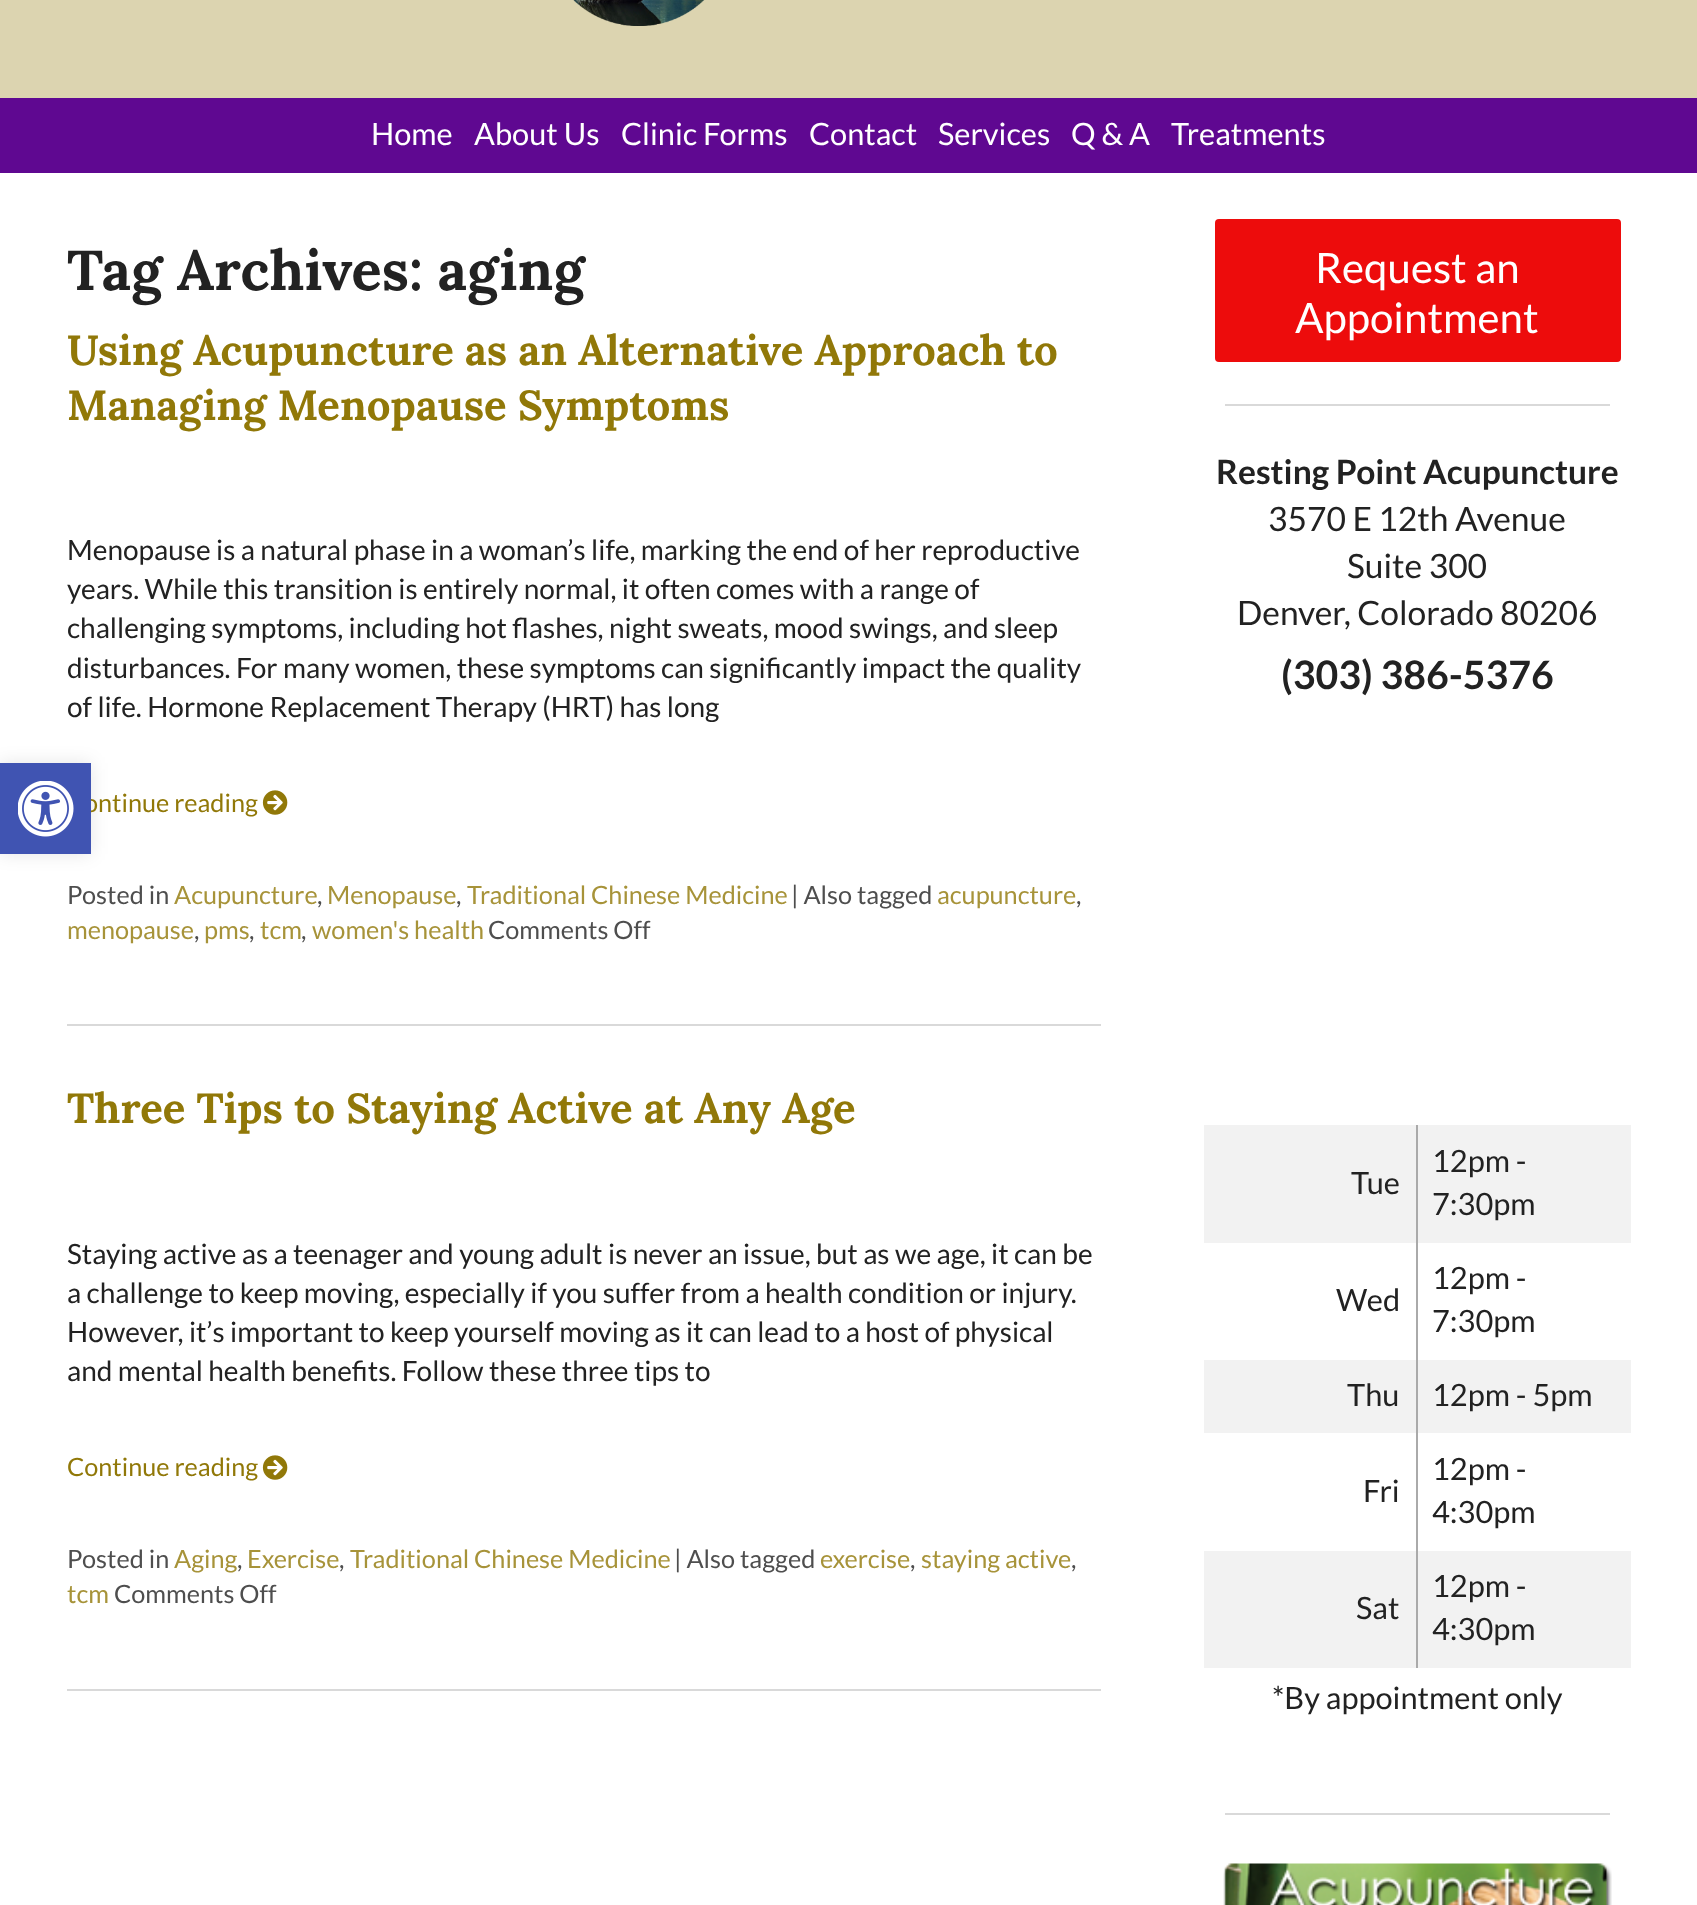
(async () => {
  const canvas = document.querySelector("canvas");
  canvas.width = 1697;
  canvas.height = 1905;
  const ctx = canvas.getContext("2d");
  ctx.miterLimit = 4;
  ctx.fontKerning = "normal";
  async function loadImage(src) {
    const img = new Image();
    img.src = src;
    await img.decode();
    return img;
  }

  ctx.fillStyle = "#ffffff";
  ctx.fillRect(0, 0, 1697, 1905);
  ctx.fillStyle = "rgba(0, 0, 0, 0.1)";
  ctx.filter = "blur(9px)";
  ctx.beginPath();
  ctx.rect(0, 763, 91, 91);
  ctx.fill();
  ctx.filter = "none";
  ctx.fillStyle = "#dcd4b0";
  ctx.fillRect(0, 0, 1697, 98);
  ctx.drawImage(await loadImage("img/2.png"), 573, 0, 132, 26);
  ctx.fillStyle = "#5f0891";
  ctx.fillRect(0, 98, 1697, 75);
  ctx.fillStyle = "#d9d9d9";
  ctx.fillRect(67, 1024, 1034, 2);
  ctx.drawImage(await loadImage("img/3.png"), 262, 790, 26, 25);
  ctx.fillRect(67, 1689, 1034, 2);
  ctx.drawImage(await loadImage("img/3.png"), 262, 1455, 26, 25);
  ctx.fillStyle = "#ed0c0c";
  ctx.beginPath();
  ctx.roundRect(1215, 219, 406, 143, 4);
  ctx.fill();
  for (const [x, y, w, h, color] of [
    [1225, 404, 385, 2, "#d9d9d9"],
    [1204, 1125, 427, 118, "#f2f2f2"],
    [1204, 1360, 427, 73, "#f2f2f2"],
    [1204, 1551, 427, 117, "#f2f2f2"],
    [1416, 1125, 2, 543, "#aaaaaa"],
    [1225, 1813, 385, 2, "#d9d9d9"],
  ]) {
    ctx.fillStyle = color;
    ctx.fillRect(x, y, w, h);
  }
  ctx.drawImage(await loadImage("img/4.png"), 1223, 1863, 389, 42);
  ctx.font = "30.75px Lato";
  ctx.fillStyle = "#ffffff";
  for (const [text, x, y] of [
    ["Home", 371, 145],
    ["About Us", 474, 145],
    ["Clinic Forms", 621, 145],
    ["Contact", 809, 145],
    ["Services", 938, 145],
    ["Q & A", 1071, 145],
    ["Treatments", 1171, 145],
  ]) {
    ctx.fillText(text, x, y);
  }
  ctx.font = "bold 56px Lora";
  ctx.fillStyle = "#222222";
  ctx.fillText("Tag Archives: aging", 67, 290);
  ctx.font = "bold 42px Lora";
  ctx.fillStyle = "#917808";
  ctx.fillText("Using Acupuncture as an Alternative Approach to", 67, 365);
  ctx.fillText("Managing Menopause Symptoms", 67, 420);
  ctx.font = "28px Lato";
  ctx.fillStyle = "#222222";
  for (const [text, x, y] of [
    ["Menopause is a natural phase in a woman’s life, marking the end of her reproductive", 67, 560],
    ["years. While this transition is entirely normal, it often comes with a range of", 67, 599],
    ["challenging symptoms, including hot flashes, night sweats, mood swings, and sleep", 67, 638],
    ["disturbances. For many women, these symptoms can significantly impact the quality", 67, 678],
    ["of life. Hormone Replacement Therapy (HRT) has long", 67, 717],
  ]) {
    ctx.fillText(text, x, y);
  }
  ctx.font = "25.25px Lato";
  ctx.fillStyle = "#917808";
  ctx.fillText("ontinue reading", 84, 812);
  ctx.fillStyle = "#4054b2";
  ctx.fillRect(0, 763, 91, 91);
  ctx.drawImage(await loadImage("img/1.png"), 18, 781, 56, 56);
  ctx.fillStyle = "#4e4e4e";
  ctx.fillText("Posted in", 67, 904);
  ctx.fillStyle = "#a79339";
  ctx.fillText("Acupuncture", 174, 904);
  ctx.fillStyle = "#4e4e4e";
  ctx.fillText(",", 317, 904);
  ctx.fillStyle = "#a79339";
  ctx.fillText("Menopause", 327, 904);
  ctx.fillStyle = "#4e4e4e";
  ctx.fillText(",", 456, 904);
  ctx.fillStyle = "#a79339";
  ctx.fillText("Traditional Chinese Medicine", 467, 904);
  ctx.fillStyle = "#4e4e4e";
  ctx.fillText("| Also tagged", 791, 904);
  ctx.fillStyle = "#a79339";
  ctx.fillText("acupuncture", 937, 904);
  ctx.fillStyle = "#4e4e4e";
  ctx.fillText(",", 1076, 904);
  ctx.fillStyle = "#a79339";
  ctx.fillText("menopause", 67, 939);
  ctx.fillStyle = "#4e4e4e";
  ctx.fillText(",", 194, 939);
  ctx.fillStyle = "#a79339";
  ctx.fillText("pms", 204, 939);
  ctx.fillStyle = "#4e4e4e";
  ctx.fillText(",", 249, 939);
  ctx.fillStyle = "#a79339";
  ctx.fillText("tcm", 260, 939);
  ctx.fillStyle = "#4e4e4e";
  ctx.fillText(",", 301, 939);
  ctx.fillStyle = "#a79339";
  ctx.fillText("women's health", 312, 939);
  ctx.fillStyle = "#4e4e4e";
  ctx.fillText("Comments Off", 488, 939);
  ctx.font = "bold 42px Lora";
  ctx.fillStyle = "#917808";
  ctx.fillText("Three Tips to Staying Active at Any Age", 67, 1123);
  ctx.font = "28px Lato";
  ctx.fillStyle = "#222222";
  for (const [text, x, y] of [
    ["Staying active as a teenager and young adult is never an issue, but as we age, it can be", 67, 1264],
    ["a challenge to keep moving, especially if you suffer from a health condition or injury.", 67, 1303],
    ["However, it’s important to keep yourself moving as it can lead to a host of physical", 67, 1342],
    ["and mental health benefits. Follow these three tips to", 67, 1381],
  ]) {
    ctx.fillText(text, x, y);
  }
  ctx.font = "25.25px Lato";
  ctx.fillStyle = "#917808";
  ctx.fillText("Continue reading", 67, 1476);
  ctx.fillStyle = "#4e4e4e";
  ctx.fillText("Posted in", 67, 1568);
  ctx.fillStyle = "#a79339";
  ctx.fillText("Aging", 174, 1568);
  ctx.fillStyle = "#4e4e4e";
  ctx.fillText(",", 237, 1568);
  ctx.fillStyle = "#a79339";
  ctx.fillText("Exercise", 247, 1568);
  ctx.fillStyle = "#4e4e4e";
  ctx.fillText(",", 339, 1568);
  ctx.fillStyle = "#a79339";
  ctx.fillText("Traditional Chinese Medicine", 350, 1568);
  ctx.fillStyle = "#4e4e4e";
  ctx.fillText("| Also tagged", 674, 1568);
  ctx.fillStyle = "#a79339";
  ctx.fillText("exercise", 820, 1568);
  ctx.fillStyle = "#4e4e4e";
  ctx.fillText(",", 910, 1568);
  ctx.fillStyle = "#a79339";
  ctx.fillText("staying active", 921, 1568);
  ctx.fillStyle = "#4e4e4e";
  ctx.fillText(",", 1071, 1568);
  ctx.fillStyle = "#a79339";
  ctx.fillText("tcm", 67, 1603);
  ctx.fillStyle = "#4e4e4e";
  ctx.fillText("Comments Off", 114, 1603);
  ctx.font = "42px Lato";
  ctx.fillStyle = "#ffffff";
  ctx.fillText("Request an", 1315, 283);
  ctx.fillText("Appointment", 1295, 333);
  ctx.font = "bold 33.6px Lato";
  ctx.fillStyle = "#222222";
  ctx.fillText("Resting Point Acupuncture", 1216, 484);
  ctx.font = "33.6px Lato";
  for (const [text, x, y] of [
    ["3570 E 12th Avenue", 1268, 531],
    ["Suite 300", 1347, 578],
    ["Denver, Colorado 80206", 1237, 625],
  ]) {
    ctx.fillText(text, x, y);
  }
  ctx.font = "bold 39.25px Lato";
  ctx.fillText("(303) 386-5376", 1281, 689);
  ctx.font = "30.75px Lato";
  for (const [text, x, y] of [
    ["Tue", 1351, 1194],
    ["12pm -", 1432, 1172],
    ["7:30pm", 1432, 1215],
    ["Wed", 1336, 1311],
    ["12pm -", 1432, 1289],
    ["7:30pm", 1432, 1332],
    ["Thu", 1347, 1406],
    ["12pm - 5pm", 1432, 1406],
    ["Fri", 1363, 1502],
    ["12pm -", 1432, 1480],
    ["4:30pm", 1432, 1523],
    ["Sat", 1356, 1619],
    ["12pm -", 1432, 1597],
    ["4:30pm", 1432, 1640],
    ["*By appointment only", 1272, 1709],
  ]) {
    ctx.fillText(text, x, y);
  }
})();
